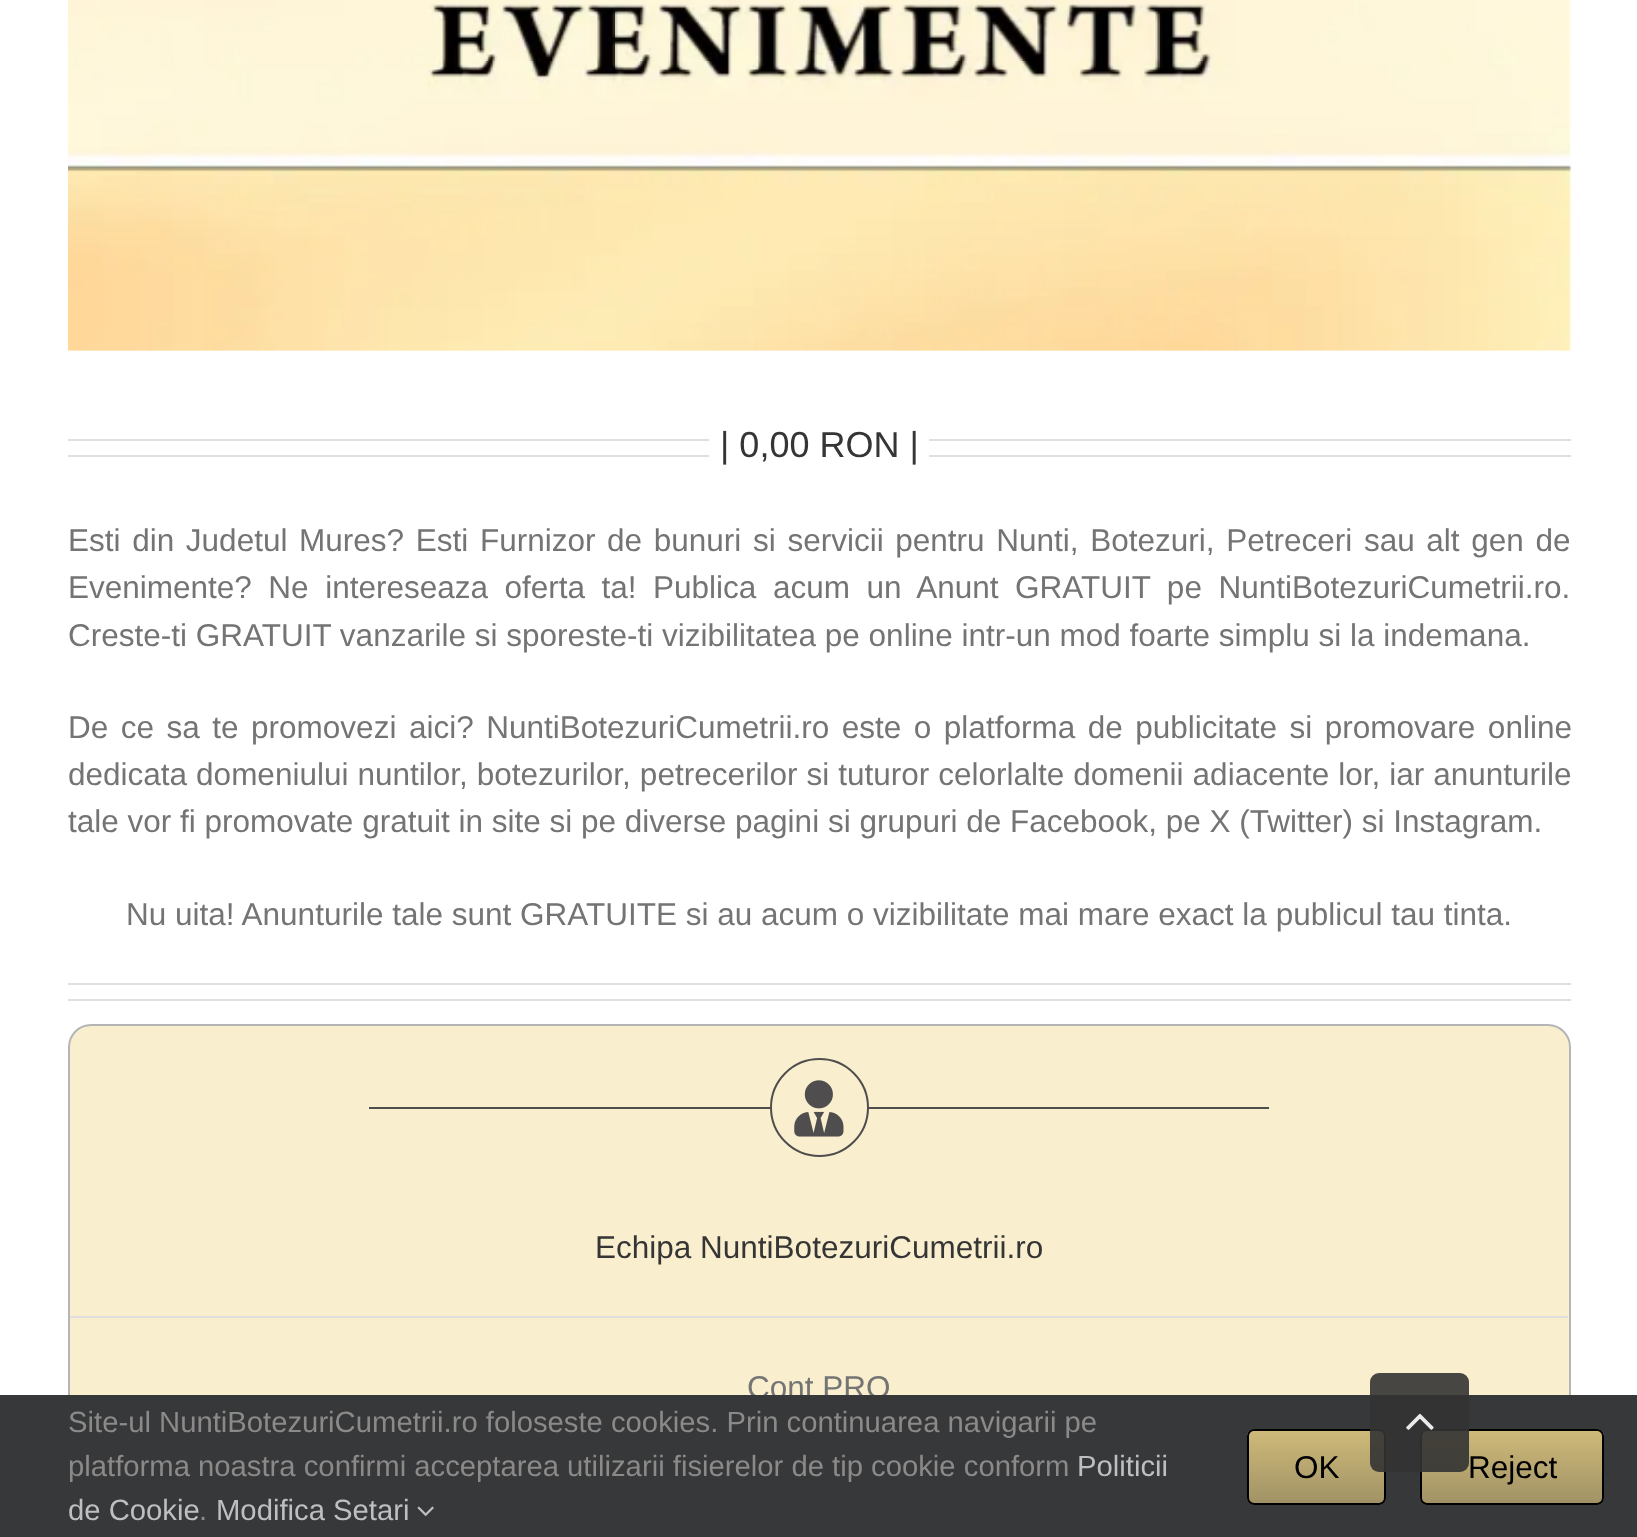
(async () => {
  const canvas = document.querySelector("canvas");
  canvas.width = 1637;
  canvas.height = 1537;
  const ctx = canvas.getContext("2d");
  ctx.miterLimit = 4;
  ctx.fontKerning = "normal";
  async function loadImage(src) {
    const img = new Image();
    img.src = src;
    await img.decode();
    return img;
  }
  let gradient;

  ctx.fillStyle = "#ffffff";
  ctx.fillRect(0, 0, 1637, 1537);
  ctx.drawImage(await loadImage("img/1.png"), 68, 0, 1503, 351);
  for (const [x, y, w, h, color] of [
    [68, 439, 641, 2, "#e0dede"],
    [68, 455, 641, 2, "#e0dede"],
    [929, 439, 642, 2, "#e0dede"],
    [929, 455, 642, 2, "#e0dede"],
    [68, 983, 1503, 2, "#e0dede"],
    [68, 999, 1503, 2, "#e0dede"],
  ]) {
    ctx.fillStyle = color;
    ctx.fillRect(x, y, w, h);
  }
  ctx.fillStyle = "#f9efcf";
  ctx.beginPath();
  ctx.roundRect(69, 1025, 1501, 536, 22);
  ctx.fill();
  ctx.strokeStyle = "#b5b5b5";
  ctx.lineWidth = 2;
  ctx.stroke();
  ctx.fillStyle = "#4f4d4d";
  ctx.fillRect(369, 1107, 401, 2);
  ctx.beginPath();
  ctx.arc(819.5, 1107.5, 48.5, 0, Math.PI * 2);
  ctx.strokeStyle = "#4f4d4d";
  ctx.stroke();
  ctx.drawImage(await loadImage("img/2.png"), 794, 1080, 50, 57);
  ctx.fillRect(869, 1107, 400, 2);
  ctx.fillStyle = "#e0dede";
  ctx.fillRect(70, 1316, 1498, 2);
  ctx.font = "36px Liberation Sans";
  ctx.fillStyle = "#353535";
  ctx.fillText("| 0,00 RON |", 720, 457);
  ctx.wordSpacing = "2.9px";
  ctx.font = "31.5px Liberation Sans";
  ctx.fillStyle = "#747474";
  ctx.fillText("Esti din Judetul Mures? Esti Furnizor de bunuri si servicii pentru Nunti, Botezuri, Petreceri sau alt gen de", 68, 551);
  ctx.wordSpacing = "7.75px";
  ctx.fillText("Evenimente? Ne intereseaza oferta ta! Publica acum un Anunt GRATUIT pe NuntiBotezuriCumetrii.ro.", 68, 598);
  ctx.wordSpacing = "0px";
  ctx.fillText("Creste-ti GRATUIT vanzarile si sporeste-ti vizibilitatea pe online intr-un mod foarte simplu si la indemana.", 68, 646);
  ctx.wordSpacing = "3.75px";
  ctx.fillText("De ce sa te promovezi aici? NuntiBotezuriCumetrii.ro este o platforma de publicitate si promovare online", 68, 738);
  ctx.wordSpacing = "0.25px";
  ctx.fillText("dedicata domeniului nuntilor, botezurilor, petrecerilor si tuturor celorlalte domenii adiacente lor, iar anunturile", 68, 785);
  ctx.wordSpacing = "0px";
  ctx.fillText("tale vor fi promovate gratuit in site si pe diverse pagini si grupuri de Facebook, pe X (Twitter) si Instagram.", 68, 832);
  ctx.fillText("Nu uita! Anunturile tale sunt GRATUITE si au acum o vizibilitate mai mare exact la publicul tau tinta.", 126, 925);
  ctx.fillStyle = "#353535";
  ctx.fillText("Echipa NuntiBotezuriCumetrii.ro", 595, 1258);
  ctx.fillStyle = "#747474";
  ctx.fillText("Cont PRO", 747, 1398);
  ctx.fillStyle = "#363839";
  ctx.fillRect(0, 1395, 1637, 142);
  ctx.font = "29.25px Liberation Sans";
  ctx.fillStyle = "#8c8989";
  ctx.fillText("Site-ul NuntiBotezuriCumetrii.ro foloseste cookies. Prin continuarea navigarii pe", 68, 1432);
  ctx.fillText("platforma noastra confirmi acceptarea utilizarii fisierelor de tip cookie conform", 68, 1476);
  ctx.fillStyle = "#bfbfbf";
  for (const [text, x, y] of [
    ["Politicii", 1077, 1476],
    ["de Cookie", 68, 1520],
    ["Modifica Setari", 216, 1520],
  ]) {
    ctx.fillText(text, x, y);
  }
  ctx.drawImage(await loadImage("img/4.png"), 417, 1506, 17, 10);
  ctx.fillStyle = "#8c8989";
  ctx.fillText(".", 199, 1520);
  ctx.fillStyle = "#a19366";
  ctx.beginPath();
  ctx.roundRect(1247, 1429, 139, 76, 7);
  ctx.fill();
  ctx.save();
  ctx.beginPath();
  ctx.roundRect(1247, 1429, 139, 76, 7);
  ctx.clip();
  gradient = ctx.createLinearGradient(1316, 1431, 1316, 1503);
  gradient.addColorStop(0, "rgba(239, 213, 134, 0.58)");
  gradient.addColorStop(1, "rgba(239, 213, 134, 0)");
  ctx.fillStyle = gradient;
  ctx.fillRect(1247, 1431, 139, 69);
  ctx.restore();
  ctx.beginPath();
  ctx.roundRect(1248, 1430, 137, 74, 6);
  ctx.strokeStyle = "#000000";
  ctx.stroke();
  ctx.font = "31.5px Liberation Sans";
  ctx.fillStyle = "#000000";
  ctx.fillText("OK", 1294, 1478);
  ctx.fillStyle = "#a19366";
  ctx.beginPath();
  ctx.roundRect(1420, 1429, 184, 76, 7);
  ctx.fill();
  ctx.save();
  ctx.beginPath();
  ctx.roundRect(1420, 1429, 184, 76, 7);
  ctx.clip();
  gradient = ctx.createLinearGradient(1512, 1431, 1512, 1503);
  gradient.addColorStop(0, "rgba(239, 213, 134, 0.58)");
  gradient.addColorStop(1, "rgba(239, 213, 134, 0)");
  ctx.fillStyle = gradient;
  ctx.fillRect(1420, 1431, 184, 69);
  ctx.restore();
  ctx.beginPath();
  ctx.roundRect(1421, 1430, 182, 74, 6);
  ctx.stroke();
  ctx.fillStyle = "rgba(51, 51, 51, 0.9)";
  ctx.beginPath();
  ctx.roundRect(1370, 1373, 99, 99, 9);
  ctx.fill();
  ctx.drawImage(await loadImage("img/3.png"), 1406, 1413, 28, 17);
  ctx.fillStyle = "#000000";
  ctx.fillText("Reject", 1468, 1478);
})();
